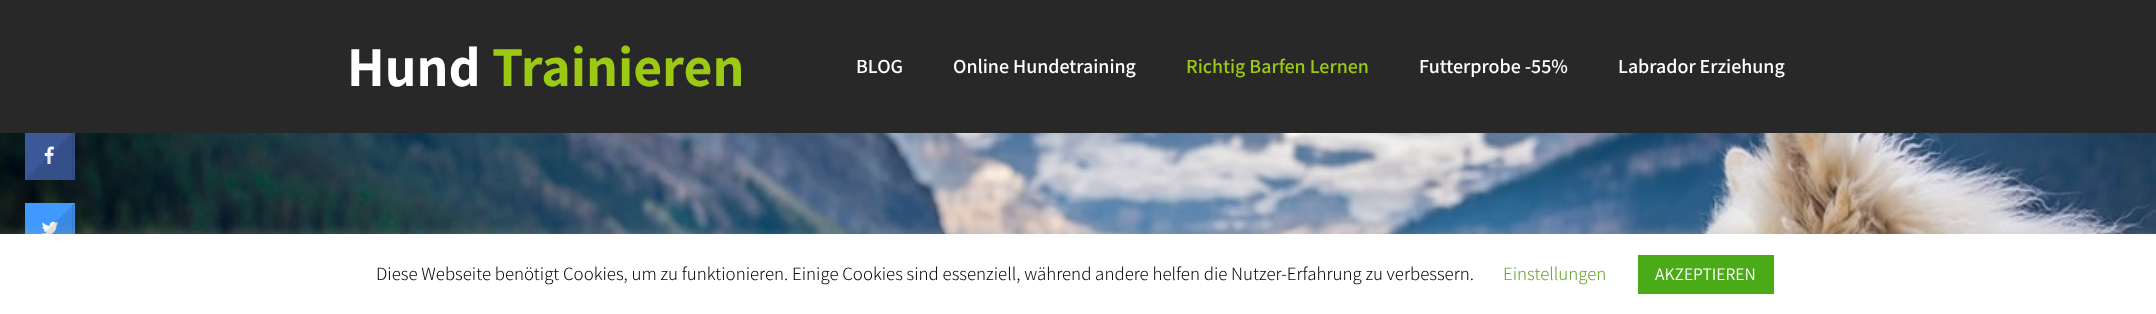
(async () => {
  const canvas = document.querySelector("canvas");
  canvas.width = 2156;
  canvas.height = 314;
  const ctx = canvas.getContext("2d");
  ctx.miterLimit = 4;
  ctx.fontKerning = "normal";
  async function loadImage(src) {
    const img = new Image();
    img.src = src;
    await img.decode();
    return img;
  }
  let path;

  ctx.fillStyle = "#ffffff";
  ctx.fillRect(0, 0, 2156, 314);
  ctx.drawImage(await loadImage("img/3.png"), 0, 133, 2156, 101);
  ctx.fillStyle = "#3b5998";
  ctx.fillRect(25, 133, 50, 47);
  ctx.fillStyle = "#355089";
  path = new Path2D("M75 130V180L72 178V132Z");
  ctx.fill(path);
  ctx.fillStyle = "#282828";
  ctx.fillRect(0, 0, 2156, 133);
  ctx.fillStyle = "rgba(0, 0, 0, 0.1)";
  path = new Path2D("M75 180H25L28 178H72Z");
  ctx.fill(path);
  ctx.drawImage(await loadImage("img/1.png"), 44, 146, 10, 18);
  ctx.save();
  ctx.beginPath();
  ctx.rect(28, 133, 45, 45);
  ctx.clip();
  path = new Path2D("M75 130L100 155L50 204L25 180Z");
  ctx.fill(path);
  ctx.restore();
  ctx.fillStyle = "#4099ff";
  ctx.fillRect(25, 203, 50, 31);
  ctx.fillStyle = "rgba(0, 0, 0, 0.1)";
  path = new Path2D("M75 202V252L72 250V205Z");
  ctx.fill(path);
  ctx.drawImage(await loadImage("img/2.png"), 41, 221, 17, 13);
  ctx.save();
  ctx.beginPath();
  ctx.rect(28, 205, 45, 45);
  ctx.clip();
  path = new Path2D("M75 203L100 227L50 277L25 252Z");
  ctx.fill(path);
  ctx.restore();
  ctx.fillStyle = "rgba(172, 171, 171, 0.3)";
  ctx.filter = "blur(6px)";
  ctx.beginPath();
  ctx.rect(0, 233, 2156, 81);
  ctx.fill();
  ctx.filter = "none";
  ctx.fillStyle = "#ffffff";
  ctx.fillRect(0, 234, 2156, 80);
  ctx.fillStyle = "#4baa17";
  ctx.fillRect(1638, 255, 136, 39);
  ctx.font = "bold 56.25px Assistant";
  ctx.fillStyle = "#ffffff";
  ctx.fillText("Hund", 347, 86);
  ctx.fillStyle = "#9cc914";
  ctx.fillText("Trainieren", 492, 86);
  ctx.font = "600 20px Assistant";
  ctx.fillStyle = "#ffffff";
  ctx.fillText("BLOG", 856, 73);
  ctx.fillText("Online Hundetraining", 953, 73);
  ctx.fillStyle = "#9cc914";
  ctx.fillText("Richtig Barfen Lernen", 1186, 73);
  ctx.fillStyle = "#ffffff";
  ctx.fillText("Futterprobe -55%", 1419, 73);
  ctx.fillText("Labrador Erziehung", 1618, 73);
  ctx.font = "300 18.75px Assistant";
  ctx.fillStyle = "#000000";
  ctx.fillText("Diese Webseite benötigt Cookies, um zu funktionieren. Einige Cookies sind essenziell, während andere helfen die Nutzer-Erfahrung zu verbessern.", 376, 280);
  ctx.fillStyle = "#62a329";
  ctx.fillText("Einstellungen", 1503, 280);
  ctx.font = "17.5px Assistant";
  ctx.fillStyle = "#ffffff";
  ctx.fillText("AKZEPTIEREN", 1655, 280);
})();
